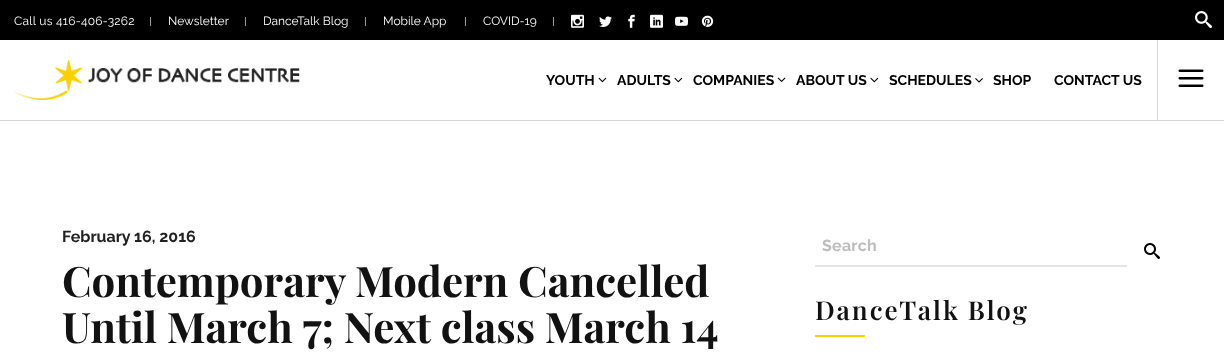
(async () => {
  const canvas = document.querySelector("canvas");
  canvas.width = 1224;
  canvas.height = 362;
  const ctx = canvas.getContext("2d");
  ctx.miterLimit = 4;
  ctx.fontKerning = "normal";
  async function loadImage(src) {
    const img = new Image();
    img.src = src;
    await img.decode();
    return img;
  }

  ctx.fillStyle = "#ffffff";
  ctx.fillRect(0, 0, 1224, 362);
  for (const [x, y, w, h, color] of [
    [0, 0, 1224, 40, "#000000"],
    [150, 17, 1, 9, "#949494"],
    [245, 17, 1, 9, "#949494"],
    [365, 17, 1, 9, "#949494"],
    [465, 17, 1, 9, "#949494"],
    [553, 17, 1, 9, "#949494"],
  ]) {
    ctx.fillStyle = color;
    ctx.fillRect(x, y, w, h);
  }
  ctx.drawImage(await loadImage("img/1.png"), 571, 14, 13, 14);
  ctx.drawImage(await loadImage("img/2.png"), 599, 16, 13, 11);
  ctx.drawImage(await loadImage("img/3.png"), 628, 14, 7, 14);
  ctx.drawImage(await loadImage("img/4.png"), 650, 14, 13, 14);
  ctx.drawImage(await loadImage("img/5.png"), 675, 16, 13, 10);
  ctx.drawImage(await loadImage("img/6.png"), 701, 15, 13, 12);
  ctx.drawImage(await loadImage("img/7.png"), 1195, 11, 17, 17);
  ctx.fillStyle = "#d5d5d5";
  ctx.fillRect(0, 120, 1224, 1);
  ctx.drawImage(await loadImage("img/8.png"), 14, 60, 286, 40);
  ctx.drawImage(await loadImage("img/9.png"), 598, 77, 9, 6);
  ctx.drawImage(await loadImage("img/10.png"), 674, 77, 9, 6);
  ctx.drawImage(await loadImage("img/11.png"), 777, 77, 9, 5);
  ctx.drawImage(await loadImage("img/12.png"), 870, 77, 9, 6);
  ctx.drawImage(await loadImage("img/13.png"), 975, 78, 8, 5);
  ctx.fillRect(1157, 40, 1, 80);
  ctx.drawImage(await loadImage("img/14.png"), 1178, 69, 26, 18);
  ctx.fillStyle = "#e5e5e5";
  ctx.fillRect(815, 265, 312, 2);
  ctx.drawImage(await loadImage("img/15.png"), 1144, 243, 16, 16);
  ctx.fillStyle = "#fed100";
  ctx.fillRect(815, 335, 50, 2);
  ctx.letterSpacing = "0.25px";
  ctx.font = "12px Raleway";
  ctx.fillStyle = "#ffffff";
  ctx.fillText("Call us 416-406-3262", 14, 25);
  ctx.letterSpacing = "0px";
  for (const [text, x, y] of [
    ["Newsletter", 168, 25],
    ["DanceTalk Blog", 263, 25],
    ["Mobile App", 383, 25],
    ["COVID-19", 483, 25],
  ]) {
    ctx.fillText(text, x, y);
  }
  ctx.font = "bold 14px Raleway";
  ctx.fillStyle = "#000000";
  for (const [text, x, y] of [
    ["YOUTH", 546, 85],
    ["ADULTS", 617, 85],
    ["COMPANIES", 693, 85],
    ["ABOUT US", 796, 85],
    ["SCHEDULES", 889, 85],
    ["SHOP", 993, 85],
    ["CONTACT US", 1054, 85],
  ]) {
    ctx.fillText(text, x, y);
  }
  ctx.font = "bold 16px Raleway";
  ctx.fillStyle = "#212121";
  ctx.fillText("February 16, 2016", 62, 242);
  ctx.font = "bold 42px Playfair Display";
  ctx.fillStyle = "#121212";
  ctx.fillText("Contemporary Modern Cancelled", 62, 297);
  ctx.fillText("Until March 7; Next class March 14", 62, 343);
  ctx.letterSpacing = "0.25px";
  ctx.font = "bold 16px Raleway";
  ctx.fillStyle = "#bfbcbc";
  ctx.fillText("Search", 822, 251);
  ctx.letterSpacing = "2px";
  ctx.font = "600 26px Playfair Display";
  ctx.fillStyle = "#121212";
  ctx.fillText("DanceTalk Blog", 815, 320);
})();
